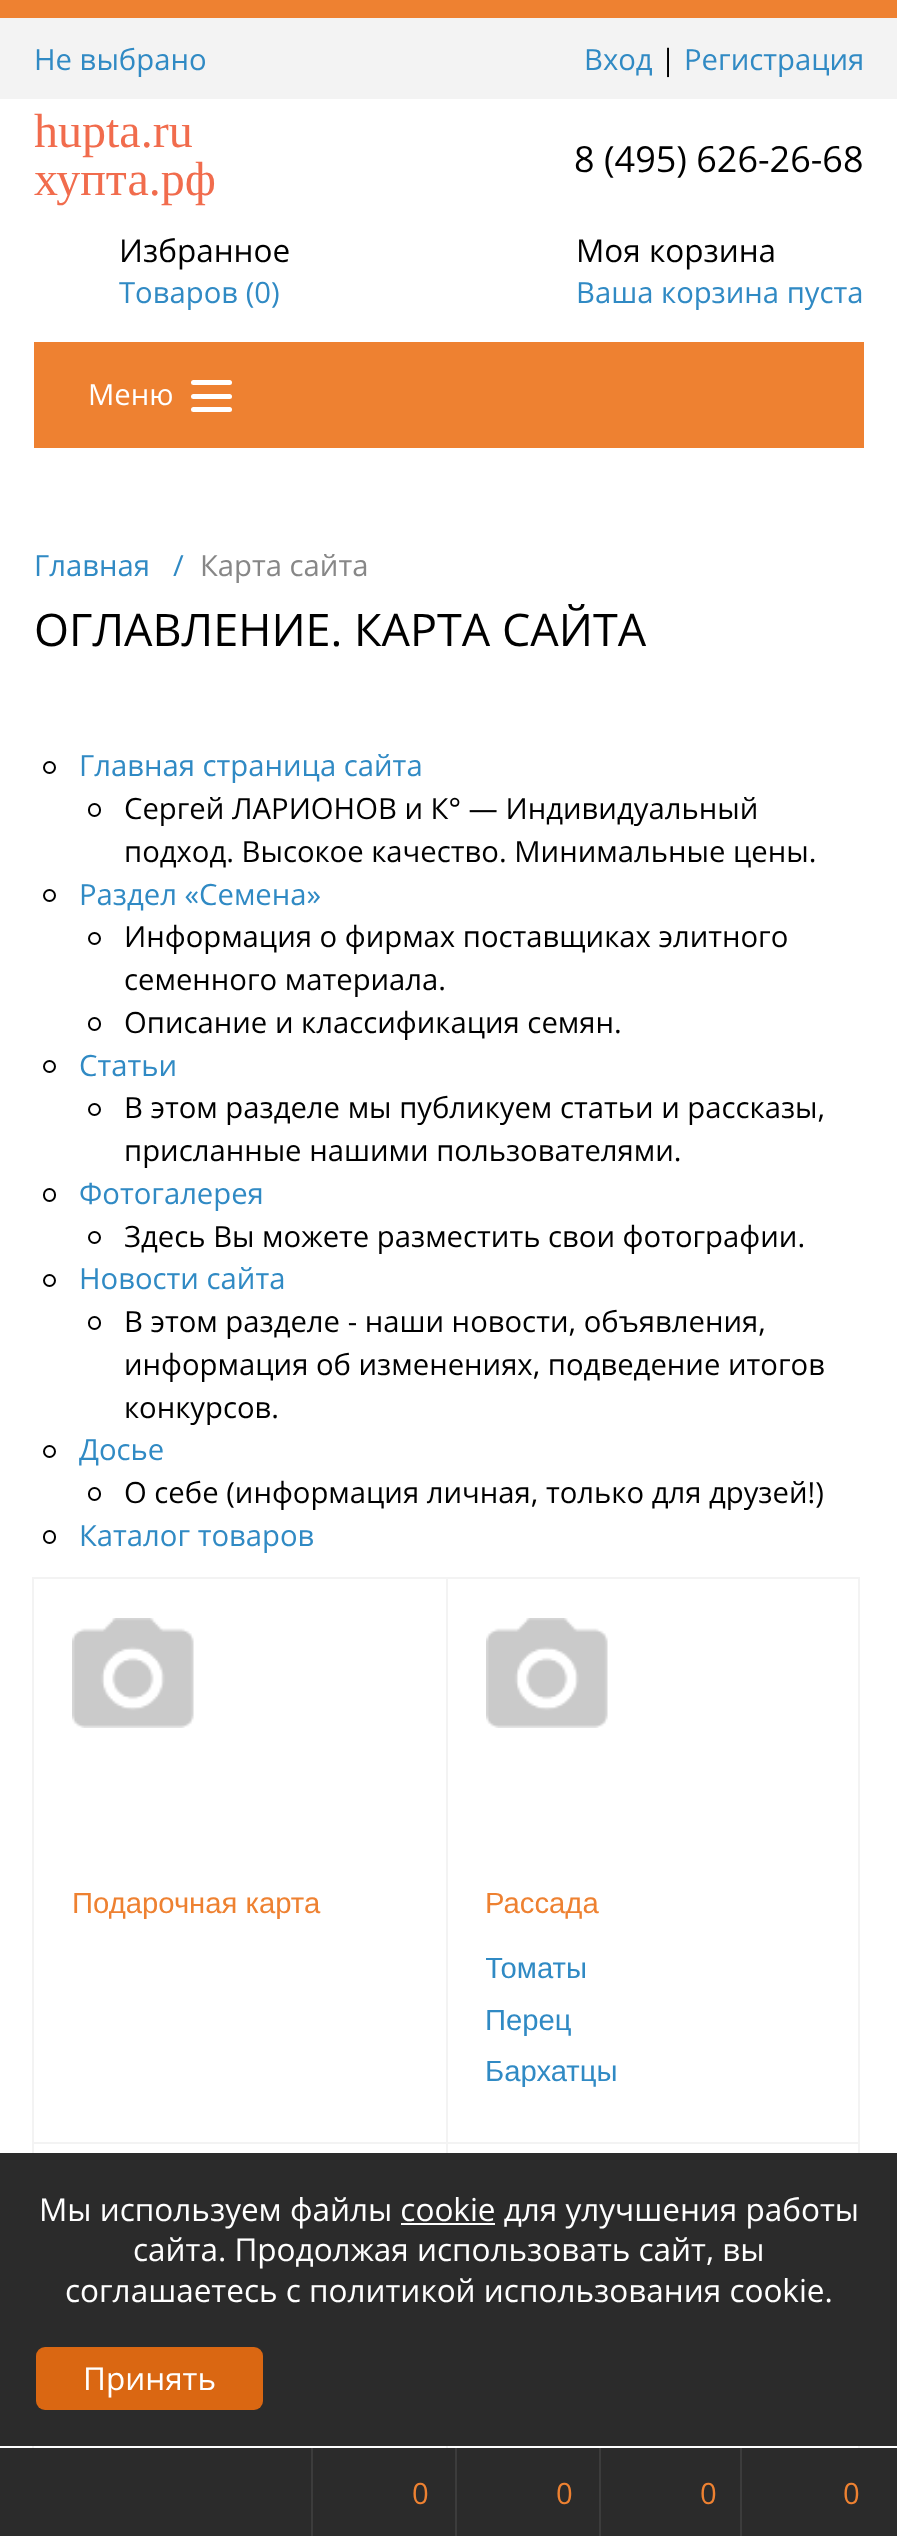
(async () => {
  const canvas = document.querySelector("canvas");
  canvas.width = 897;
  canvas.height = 2536;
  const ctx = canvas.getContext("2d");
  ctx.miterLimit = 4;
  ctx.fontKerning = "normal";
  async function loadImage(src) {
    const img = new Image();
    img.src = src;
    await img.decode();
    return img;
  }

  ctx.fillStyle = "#ffffff";
  ctx.fillRect(0, 0, 897, 2536);
  for (const [x, y, w, h, color] of [
    [0, 18, 897, 81, "#f3f3f3"],
    [0, 0, 897, 18, "#ee8131"],
    [34, 342, 830, 106, "#ee8131"],
  ]) {
    ctx.fillStyle = color;
    ctx.fillRect(x, y, w, h);
  }
  ctx.fillStyle = "#ffffff";
  ctx.beginPath();
  ctx.roundRect(191, 380, 41, 5, 2.5);
  ctx.fill();
  ctx.beginPath();
  ctx.roundRect(191, 394, 41, 5, 2.5);
  ctx.fill();
  ctx.beginPath();
  ctx.roundRect(191, 407, 41, 5, 2.5);
  ctx.fill();
  ctx.beginPath();
  ctx.arc(49.5, 767.5, 5.5, 0, Math.PI * 2);
  ctx.strokeStyle = "#000000";
  ctx.lineWidth = 2;
  ctx.stroke();
  ctx.beginPath();
  ctx.roundRect(89, 804, 11, 12, 5.5);
  ctx.stroke();
  ctx.beginPath();
  ctx.arc(49.5, 895.5, 5.5, 0, Math.PI * 2);
  ctx.stroke();
  ctx.beginPath();
  ctx.arc(94.5, 938.5, 5.5, 0, Math.PI * 2);
  ctx.stroke();
  ctx.beginPath();
  ctx.roundRect(89, 1018, 11, 12, 5.5);
  ctx.stroke();
  ctx.beginPath();
  ctx.arc(49.5, 1066.5, 5.5, 0, Math.PI * 2);
  ctx.stroke();
  ctx.beginPath();
  ctx.arc(94.5, 1109.5, 5.5, 0, Math.PI * 2);
  ctx.stroke();
  ctx.beginPath();
  ctx.roundRect(44, 1189, 11, 12, 5.5);
  ctx.stroke();
  ctx.beginPath();
  ctx.arc(94.5, 1237.5, 5.5, 0, Math.PI * 2);
  ctx.stroke();
  ctx.beginPath();
  ctx.arc(49.5, 1280.5, 5.5, 0, Math.PI * 2);
  ctx.stroke();
  ctx.beginPath();
  ctx.roundRect(89, 1317, 11, 12, 5.5);
  ctx.stroke();
  ctx.beginPath();
  ctx.arc(49.5, 1451.5, 5.5, 0, Math.PI * 2);
  ctx.stroke();
  ctx.beginPath();
  ctx.roundRect(89, 1488, 11, 12, 5.5);
  ctx.stroke();
  ctx.beginPath();
  ctx.roundRect(44, 1531, 11, 12, 5.5);
  ctx.stroke();
  ctx.strokeStyle = "#f3f3f3";
  ctx.strokeRect(33, 1578, 414, 565);
  ctx.drawImage(await loadImage("img/1.png"), 72, 1618, 122, 110);
  ctx.strokeRect(447, 1578, 412, 565);
  ctx.drawImage(await loadImage("img/2.png"), 486, 1618, 122, 110);
  ctx.strokeRect(33, 2143, 414, 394);
  ctx.strokeRect(447, 2143, 412, 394);
  ctx.fillStyle = "#2b2b2b";
  ctx.fillRect(0, 2153, 897, 293);
  ctx.fillStyle = "#ffffff";
  ctx.fillRect(401, 2223, 94, 2);
  ctx.fillStyle = "#da6712";
  ctx.beginPath();
  ctx.roundRect(36, 2347, 227, 63, 9);
  ctx.fill();
  for (const [x, y, w, h, color] of [
    [0, 2448, 897, 88, "#2b2b2b"],
    [311, 2448, 2, 88, "#3c3c3c"],
    [455, 2448, 2, 88, "#3c3c3c"],
    [599, 2448, 2, 88, "#3c3c3c"],
    [740, 2448, 2, 88, "#3c3c3c"],
  ]) {
    ctx.fillStyle = color;
    ctx.fillRect(x, y, w, h);
  }
  ctx.font = "29.25px Open Sans";
  ctx.fillStyle = "#308ac4";
  ctx.fillText("Не выбрано", 34, 70);
  ctx.fillText("Вход", 584, 70);
  ctx.fillStyle = "#000000";
  ctx.fillText("|", 660, 70);
  ctx.fillStyle = "#308ac4";
  ctx.fillText("Регистрация", 684, 70);
  ctx.font = "48px Liberation Serif";
  ctx.fillStyle = "#f16c4d";
  ctx.fillText("hupta.ru", 34, 147);
  ctx.fillText("хупта.рф", 34, 195);
  ctx.font = "36px Open Sans";
  ctx.fillStyle = "#000000";
  ctx.fillText("8 (495) 626-26-68", 574, 172);
  ctx.font = "31.5px Open Sans";
  ctx.fillText("Избранное", 119, 262);
  ctx.font = "29.25px Open Sans";
  ctx.fillStyle = "#308ac4";
  ctx.fillText("Товаров (0)", 119, 303);
  ctx.font = "31.5px Open Sans";
  ctx.fillStyle = "#000000";
  ctx.fillText("Моя корзина", 576, 262);
  ctx.font = "29.25px Open Sans";
  ctx.fillStyle = "#308ac4";
  ctx.fillText("Ваша корзина пуста", 576, 303);
  ctx.fillStyle = "#ffffff";
  ctx.fillText("Меню", 88, 405);
  ctx.fillStyle = "#308ac4";
  ctx.fillText("Главная", 34, 576);
  ctx.fillText("/", 173, 576);
  ctx.fillStyle = "#878787";
  ctx.fillText("Карта сайта", 200, 576);
  ctx.font = "45px Open Sans";
  ctx.fillStyle = "#000000";
  ctx.fillText("ОГЛАВЛЕНИЕ. КАРТА САЙТА", 34, 646);
  ctx.font = "29.25px Open Sans";
  ctx.fillStyle = "#308ac4";
  ctx.fillText("Главная страница сайта", 79, 776);
  ctx.fillStyle = "#000000";
  ctx.fillText("Сергей ЛАРИОНОВ и К° — Индивидуальный", 124, 819);
  ctx.fillText("подход. Высокое качество. Минимальные цены.", 124, 862);
  ctx.fillStyle = "#308ac4";
  ctx.fillText("Раздел «Семена»", 79, 905);
  ctx.fillStyle = "#000000";
  for (const [text, x, y] of [
    ["Информация о фирмах поставщиках элитного", 124, 947],
    ["семенного материала.", 124, 990],
    ["Описание и классификация семян.", 124, 1033],
  ]) {
    ctx.fillText(text, x, y);
  }
  ctx.fillStyle = "#308ac4";
  ctx.fillText("Статьи", 79, 1076);
  ctx.fillStyle = "#000000";
  ctx.fillText("В этом разделе мы публикуем статьи и рассказы,", 124, 1118);
  ctx.fillText("присланные нашими пользователями.", 124, 1161);
  ctx.fillStyle = "#308ac4";
  ctx.fillText("Фотогалерея", 79, 1204);
  ctx.fillStyle = "#000000";
  ctx.fillText("Здесь Вы можете разместить свои фотографии.", 124, 1247);
  ctx.fillStyle = "#308ac4";
  ctx.fillText("Новости сайта", 79, 1289);
  ctx.fillStyle = "#000000";
  for (const [text, x, y] of [
    ["В этом разделе - наши новости, объявления,", 124, 1332],
    ["информация об изменениях, подведение итогов", 124, 1375],
    ["конкурсов.", 124, 1418],
  ]) {
    ctx.fillText(text, x, y);
  }
  ctx.fillStyle = "#308ac4";
  ctx.fillText("Досье", 79, 1460);
  ctx.fillStyle = "#000000";
  ctx.fillText("О себе (информация личная, только для друзей!)", 124, 1503);
  ctx.fillStyle = "#308ac4";
  ctx.fillText("Каталог товаров", 79, 1546);
  ctx.font = "29.25px Liberation Sans";
  ctx.fillStyle = "#ee8131";
  ctx.fillText("Подарочная карта", 72, 1913);
  ctx.fillText("Рассада", 485, 1913);
  ctx.save();
  ctx.beginPath();
  ctx.rect(486, 1949, 333, 40);
  ctx.clip();
  ctx.fillStyle = "#308ac4";
  ctx.fillText("Томаты", 485, 1978);
  ctx.restore();
  ctx.fillStyle = "#308ac4";
  ctx.fillText("Перец", 485, 2030);
  ctx.fillText("Бархатцы", 485, 2081);
  ctx.font = "31.5px Open Sans";
  ctx.fillStyle = "#ffffff";
  for (const [text, x, y] of [
    ["Мы используем файлы cookie для улучшения работы", 39, 2221],
    ["сайта. Продолжая использовать сайт, вы", 133, 2261],
    ["соглашаетесь с политикой использования cookie.", 65, 2302],
    ["Принять", 83, 2390],
  ]) {
    ctx.fillText(text, x, y);
  }
  ctx.font = "29.25px Open Sans";
  ctx.fillStyle = "#ee8131";
  for (const [text, x, y] of [
    ["0", 412, 2504],
    ["0", 556, 2504],
    ["0", 700, 2504],
    ["0", 843, 2504],
  ]) {
    ctx.fillText(text, x, y);
  }
})();
